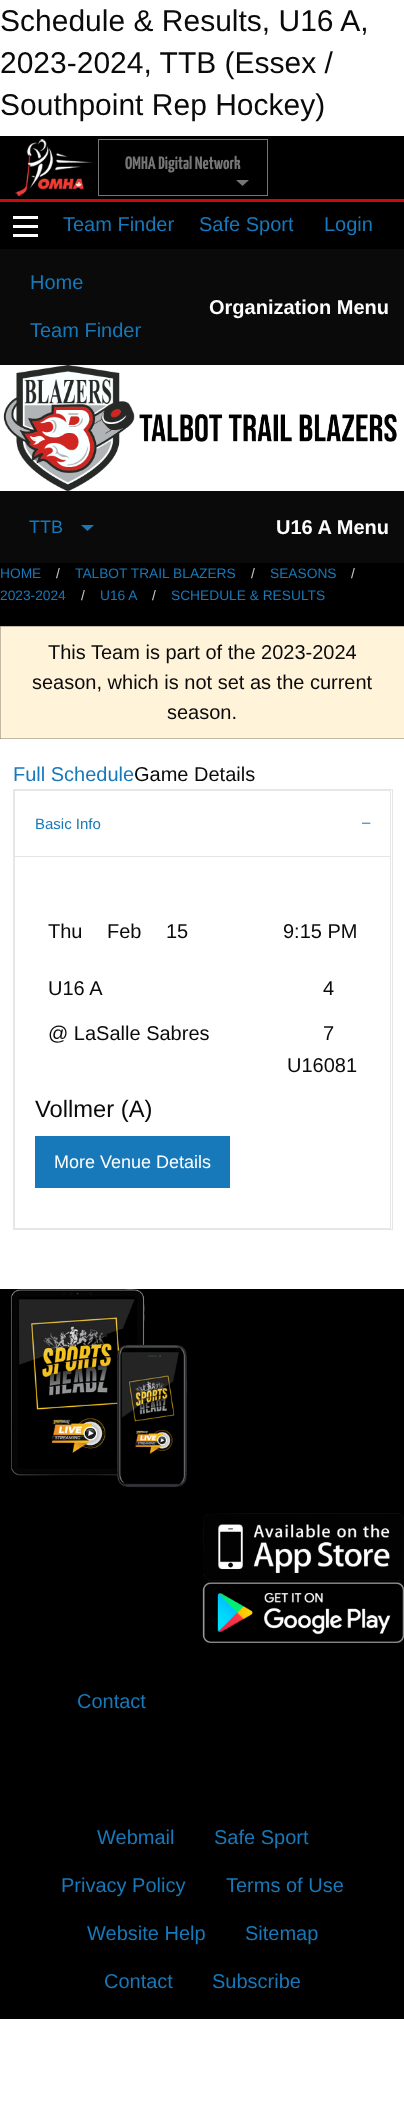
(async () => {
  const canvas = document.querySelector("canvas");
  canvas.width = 404;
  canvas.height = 2116;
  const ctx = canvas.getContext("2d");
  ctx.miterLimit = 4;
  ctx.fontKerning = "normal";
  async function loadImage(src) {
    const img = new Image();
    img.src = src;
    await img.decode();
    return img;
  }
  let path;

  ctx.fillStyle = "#ffffff";
  ctx.fillRect(0, 0, 404, 2116);
  ctx.fillStyle = "#000000";
  ctx.fillRect(0, 136, 404, 63);
  ctx.fillStyle = "#c60c0c";
  ctx.fillRect(0, 199, 404, 3);
  ctx.drawImage(await loadImage("img/1.png"), 15, 139, 78, 57);
  ctx.strokeStyle = "#767676";
  ctx.strokeRect(98.5, 139.5, 169, 56);
  ctx.fillStyle = "#767676";
  path = new Path2D("M236 180H249L242.5 186Z");
  ctx.fill(path);
  for (const [x, y, w, h, color] of [
    [0, 202, 404, 1817, "#000000"],
    [13, 234, 25, 3, "#fefefe"],
    [13, 225, 25, 3, "#fefefe"],
    [13, 216, 25, 3, "#fefefe"],
    [0, 249, 404, 116, "#0a0a0a"],
    [0, 365, 404, 126, "#ffffff"],
  ]) {
    ctx.fillStyle = color;
    ctx.fillRect(x, y, w, h);
  }
  ctx.drawImage(await loadImage("img/2.png"), 3, 365, 132, 126);
  ctx.drawImage(await loadImage("img/3.png"), 139, 414, 258, 28);
  ctx.fillStyle = "#0a0a0a";
  ctx.fillRect(0, 491, 404, 72);
  ctx.fillStyle = "#1779ba";
  path = new Path2D("M81 525H94L87.5 531Z");
  ctx.fill(path);
  ctx.fillStyle = "#ffffff";
  ctx.fillRect(0, 739, 404, 550);
  ctx.fillStyle = "#fff3d9";
  ctx.beginPath();
  ctx.rect(0.5, 626.5, 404, 112);
  ctx.fill();
  ctx.strokeStyle = "#c2b9a5";
  ctx.stroke();
  ctx.strokeStyle = "#e6e6e6";
  ctx.strokeRect(13.5, 789.5, 379, 440);
  for (const [x, y, w, h, color] of [
    [14, 790, 377, 1, "#e6e6e6"],
    [390, 790, 1, 66, "#e6e6e6"],
    [14, 790, 1, 66, "#e6e6e6"],
  ]) {
    ctx.fillStyle = color;
    ctx.fillRect(x, y, w, h);
  }
  ctx.strokeRect(14.5, 856.5, 376, 372);
  ctx.fillStyle = "#1779ba";
  ctx.fillRect(35, 1136, 195, 52);
  ctx.drawImage(await loadImage("img/4.png"), 11, 1289, 177, 199);
  ctx.drawImage(await loadImage("img/5.png"), 203, 1513, 201, 68);
  ctx.drawImage(await loadImage("img/6.png"), 202, 1582, 202, 61);
  ctx.font = "30px Liberation Sans";
  ctx.fillStyle = "#0a0a0a";
  for (const [text, x, y] of [
    ["Schedule & Results, U16 A,", 0, 31],
    ["2023-2024, TTB (Essex /", 0, 73],
    ["Southpoint Rep Hockey)", 0, 115],
  ]) {
    ctx.fillText(text, x, y);
  }
  ctx.font = "200 18px Yanone Kaffeesatz";
  ctx.fillStyle = "#767676";
  ctx.fillText("OMHA Digital Network", 125, 169);
  ctx.font = "20px Liberation Sans";
  ctx.fillStyle = "#1779ba";
  for (const [text, x, y] of [
    ["Team Finder", 63, 231],
    ["Safe Sport", 199, 231],
    ["Login", 324, 231],
    ["Home", 30, 289],
    ["Team Finder", 30, 337],
  ]) {
    ctx.fillText(text, x, y);
  }
  ctx.font = "bold 20px Liberation Sans";
  ctx.fillStyle = "#fefefe";
  ctx.fillText("Organization Menu", 209, 314);
  ctx.font = "18px Liberation Sans";
  ctx.fillStyle = "#1779ba";
  ctx.fillText("TTB", 29, 533);
  ctx.font = "bold 20px Liberation Sans";
  ctx.fillStyle = "#fefefe";
  ctx.fillText("U16 A Menu", 276, 534);
  ctx.font = "13.75px Liberation Sans";
  ctx.fillStyle = "#1779ba";
  ctx.fillText("HOME", 0, 578);
  ctx.fillStyle = "#cacaca";
  ctx.fillText("/", 56, 578);
  ctx.fillStyle = "#1779ba";
  ctx.fillText("TALBOT TRAIL BLAZERS", 75, 578);
  ctx.fillStyle = "#cacaca";
  ctx.fillText("/", 251, 578);
  ctx.fillStyle = "#1779ba";
  ctx.fillText("SEASONS", 270, 578);
  ctx.fillStyle = "#cacaca";
  ctx.fillText("/", 351, 578);
  ctx.fillStyle = "#1779ba";
  ctx.fillText("2023-2024", 0, 600);
  ctx.fillStyle = "#cacaca";
  ctx.fillText("/", 81, 600);
  ctx.fillStyle = "#1779ba";
  ctx.fillText("U16 A", 100, 600);
  ctx.fillStyle = "#cacaca";
  ctx.fillText("/", 152, 600);
  ctx.fillStyle = "#1779ba";
  ctx.fillText("SCHEDULE & RESULTS", 171, 600);
  ctx.font = "20px Liberation Sans";
  ctx.fillStyle = "#0a0a0a";
  for (const [text, x, y] of [
    ["This Team is part of the 2023-2024", 48, 659],
    ["season, which is not set as the current", 32, 689],
    ["season.", 167, 719],
  ]) {
    ctx.fillText(text, x, y);
  }
  ctx.fillStyle = "#1779ba";
  ctx.fillText("Full Schedule", 13, 781);
  ctx.fillStyle = "#0a0a0a";
  ctx.fillText("Game Details", 134, 781);
  ctx.font = "15px Liberation Sans";
  ctx.fillStyle = "#1779ba";
  ctx.fillText("Basic Info", 35, 829);
  ctx.fillText("–", 362, 827);
  ctx.font = "20px Liberation Sans";
  ctx.fillStyle = "#0a0a0a";
  for (const [text, x, y] of [
    ["Thu", 48, 938],
    ["Feb", 107, 938],
    ["15", 166, 938],
    ["9:15 PM", 283, 938],
    ["U16 A", 48, 995],
    ["4", 323, 995],
    ["@ LaSalle Sabres", 48, 1040],
    ["7", 323, 1040],
    ["U16081", 287, 1072],
  ]) {
    ctx.fillText(text, x, y);
  }
  ctx.font = "23.75px Liberation Sans";
  ctx.fillText("Vollmer (A)", 35, 1117);
  ctx.font = "18px Liberation Sans";
  ctx.fillStyle = "#fefefe";
  ctx.fillText("More Venue Details", 54, 1168);
  ctx.font = "20px Liberation Sans";
  ctx.fillStyle = "#1779ba";
  for (const [text, x, y] of [
    ["Contact", 77, 1708],
    ["Webmail", 97, 1844],
    ["Safe Sport", 214, 1844],
    ["Privacy Policy", 61, 1892],
    ["Terms of Use", 226, 1892],
    ["Website Help", 87, 1940],
    ["Sitemap", 245, 1940],
    ["Contact", 104, 1988],
    ["Subscribe", 212, 1988],
  ]) {
    ctx.fillText(text, x, y);
  }
})();
